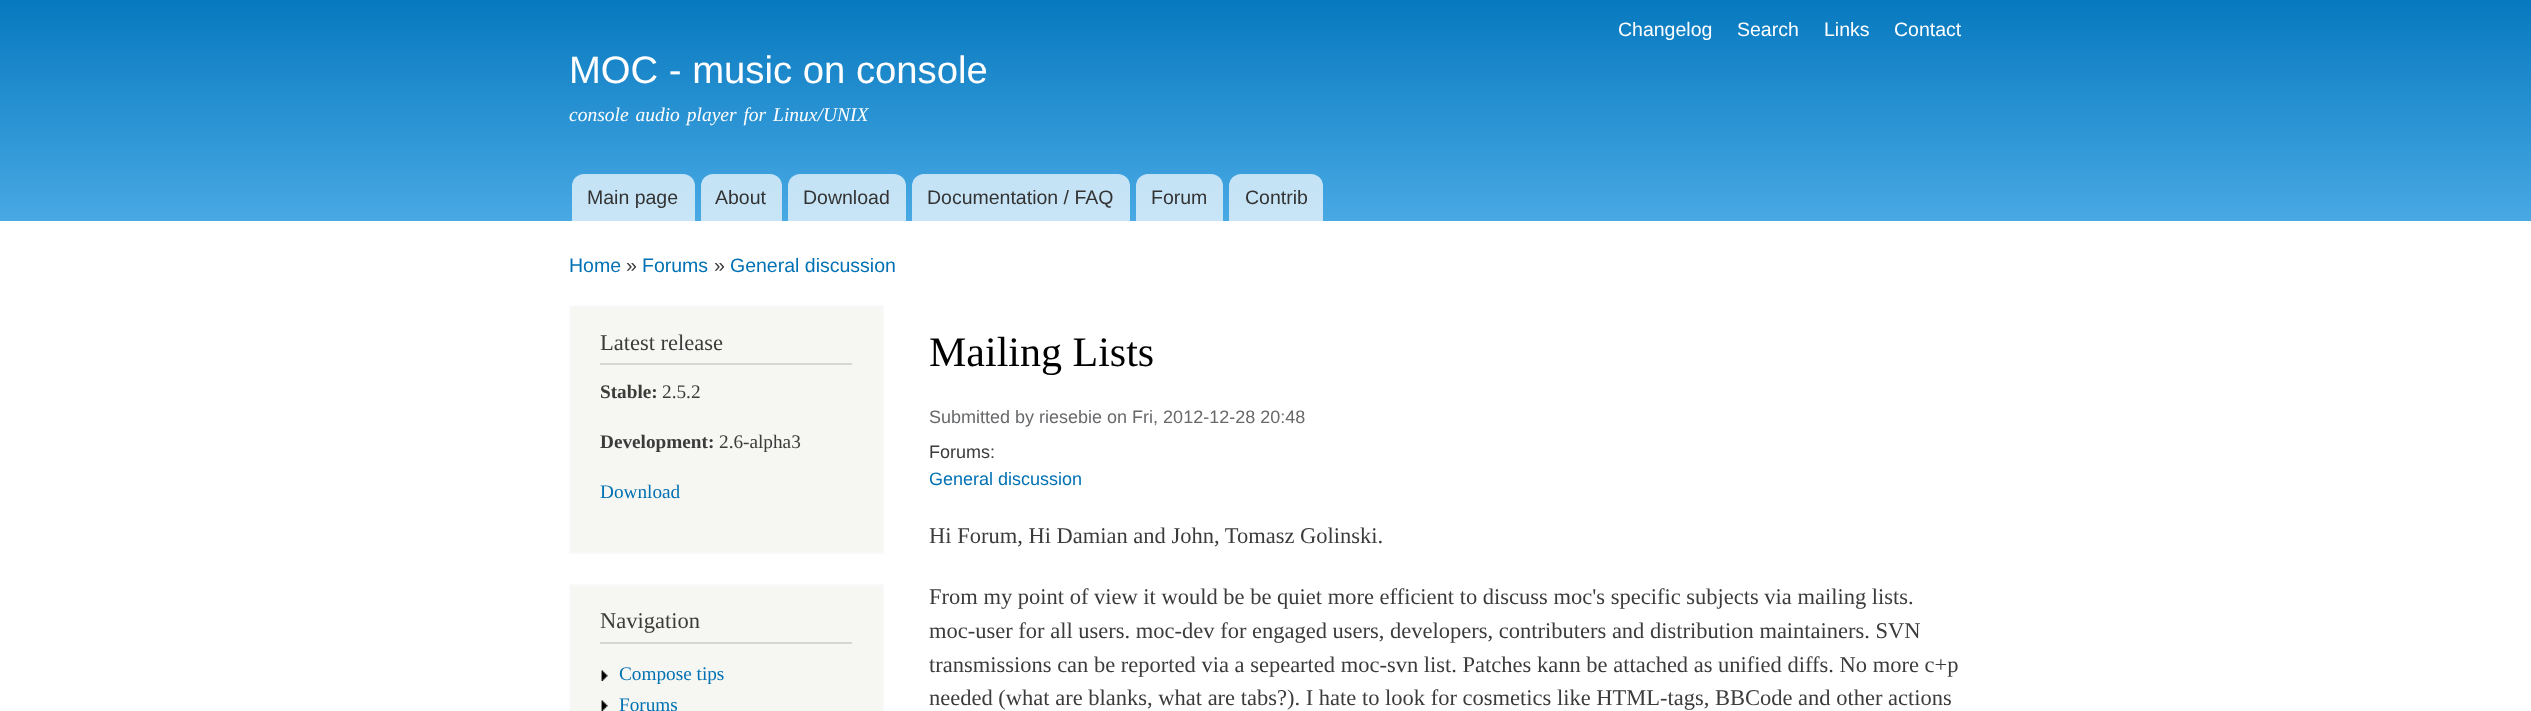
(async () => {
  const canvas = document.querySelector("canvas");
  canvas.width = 2531;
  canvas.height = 711;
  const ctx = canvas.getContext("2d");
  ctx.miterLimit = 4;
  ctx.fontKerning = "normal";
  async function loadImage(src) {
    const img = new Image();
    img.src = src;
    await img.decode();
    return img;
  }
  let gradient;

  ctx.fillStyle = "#ffffff";
  ctx.fillRect(0, 0, 2531, 711);
  gradient = ctx.createLinearGradient(1266, 0, 1266, 221);
  gradient.addColorStop(0, "#0779bf");
  gradient.addColorStop(1, "#48a9e4");
  ctx.fillStyle = gradient;
  ctx.fillRect(0, 0, 2531, 221);
  ctx.fillStyle = "rgba(255, 255, 255, 0.7)";
  ctx.beginPath();
  ctx.roundRect(572, 174, 123, 47, [12, 12, 0, 0]);
  ctx.fill();
  ctx.beginPath();
  ctx.roundRect(701, 174, 81, 47, [12, 12, 0, 0]);
  ctx.fill();
  ctx.beginPath();
  ctx.roundRect(788, 174, 118, 47, [12, 12, 0, 0]);
  ctx.fill();
  ctx.beginPath();
  ctx.roundRect(912, 174, 218, 47, [12, 12, 0, 0]);
  ctx.fill();
  ctx.beginPath();
  ctx.roundRect(1136, 174, 87, 47, [12, 12, 0, 0]);
  ctx.fill();
  ctx.beginPath();
  ctx.roundRect(1229, 174, 94, 47, [12, 12, 0, 0]);
  ctx.fill();
  ctx.fillStyle = "#f6f6f2";
  ctx.beginPath();
  ctx.rect(570, 306, 313, 247);
  ctx.fill();
  ctx.strokeStyle = "#f9f9f9";
  ctx.lineWidth = 2;
  ctx.stroke();
  ctx.fillStyle = "#d6d6d6";
  ctx.fillRect(600, 363, 252, 2);
  ctx.fillStyle = "#f6f6f2";
  ctx.beginPath();
  ctx.rect(570, 585, 313, 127);
  ctx.fill();
  ctx.stroke();
  ctx.fillStyle = "#d6d6d6";
  ctx.fillRect(600, 642, 252, 2);
  ctx.drawImage(await loadImage("img/1.png"), 601, 670, 7, 11);
  ctx.drawImage(await loadImage("img/1.png"), 601, 700, 7, 11);
  ctx.font = "19.5px Liberation Sans";
  ctx.fillStyle = "#fffeff";
  for (const [text, x, y] of [
    ["Changelog", 1618, 36],
    ["Search", 1737, 36],
    ["Links", 1824, 36],
    ["Contact", 1894, 36],
  ]) {
    ctx.fillText(text, x, y);
  }
  ctx.font = "38.25px Liberation Sans";
  ctx.fillText("MOC - music on console", 569, 83);
  ctx.wordSpacing = "2px";
  ctx.font = "italic 19.5px Liberation Serif";
  ctx.fillText("console audio player for Linux/UNIX", 569, 121);
  ctx.wordSpacing = "0px";
  ctx.font = "19.5px Liberation Sans";
  ctx.fillStyle = "#333333";
  for (const [text, x, y] of [
    ["Main page", 587, 204],
    ["About", 715, 204],
    ["Download", 803, 204],
    ["Documentation / FAQ", 927, 204],
    ["Forum", 1151, 204],
    ["Contrib", 1245, 204],
  ]) {
    ctx.fillText(text, x, y);
  }
  ctx.fillStyle = "#0071b3";
  ctx.fillText("Home", 569, 272);
  ctx.fillStyle = "#3b3b3b";
  ctx.fillText("»", 626, 272);
  ctx.fillStyle = "#0071b3";
  ctx.fillText("Forums", 642, 272);
  ctx.fillStyle = "#3b3b3b";
  ctx.fillText("»", 714, 272);
  ctx.fillStyle = "#0071b3";
  ctx.fillText("General discussion", 730, 272);
  ctx.font = "22.5px Liberation Serif";
  ctx.fillStyle = "#3b3b3b";
  ctx.fillText("Latest release", 600, 350);
  ctx.font = "bold 19.25px Liberation Serif";
  ctx.fillText("Stable:", 600, 398);
  ctx.font = "19.25px Liberation Serif";
  ctx.fillText("2.5.2", 662, 398);
  ctx.font = "bold 19.25px Liberation Serif";
  ctx.fillText("Development:", 600, 448);
  ctx.font = "19.25px Liberation Serif";
  ctx.fillText("2.6-alpha3", 719, 448);
  ctx.fillStyle = "#0071b3";
  ctx.fillText("Download", 600, 498);
  ctx.font = "22.5px Liberation Serif";
  ctx.fillStyle = "#3b3b3b";
  ctx.fillText("Navigation", 600, 628);
  ctx.font = "19.25px Liberation Serif";
  ctx.fillStyle = "#0071b3";
  ctx.fillText("Compose tips", 619, 680);
  ctx.fillText("Forums", 619, 711);
  ctx.font = "42px Liberation Serif";
  ctx.fillStyle = "#000000";
  ctx.fillText("Mailing Lists", 929, 366);
  ctx.font = "18px Liberation Sans";
  ctx.fillStyle = "#68696b";
  ctx.fillText("Submitted by riesebie on Fri, 2012-12-28 20:48", 929, 423);
  ctx.fillStyle = "#3b3b3b";
  ctx.fillText("Forums:", 929, 458);
  ctx.fillStyle = "#0071b3";
  ctx.fillText("General discussion", 929, 485);
  ctx.font = "22.5px Liberation Serif";
  ctx.fillStyle = "#3b3b3b";
  for (const [text, x, y] of [
    ["Hi Forum, Hi Damian and John, Tomasz Golinski.", 929, 543],
    ["From my point of view it would be be quiet more efficient to discuss moc's specific subjects via mailing lists.", 929, 604],
    ["moc-user for all users. moc-dev for engaged users, developers, contributers and distribution maintainers. SVN", 929, 638],
    ["transmissions can be reported via a sepearted moc-svn list. Patches kann be attached as unified diffs. No more c+p", 929, 672],
    ["needed (what are blanks, what are tabs?). I hate to look for cosmetics like HTML-tags, BBCode and other actions", 929, 705],
  ]) {
    ctx.fillText(text, x, y);
  }
})();
